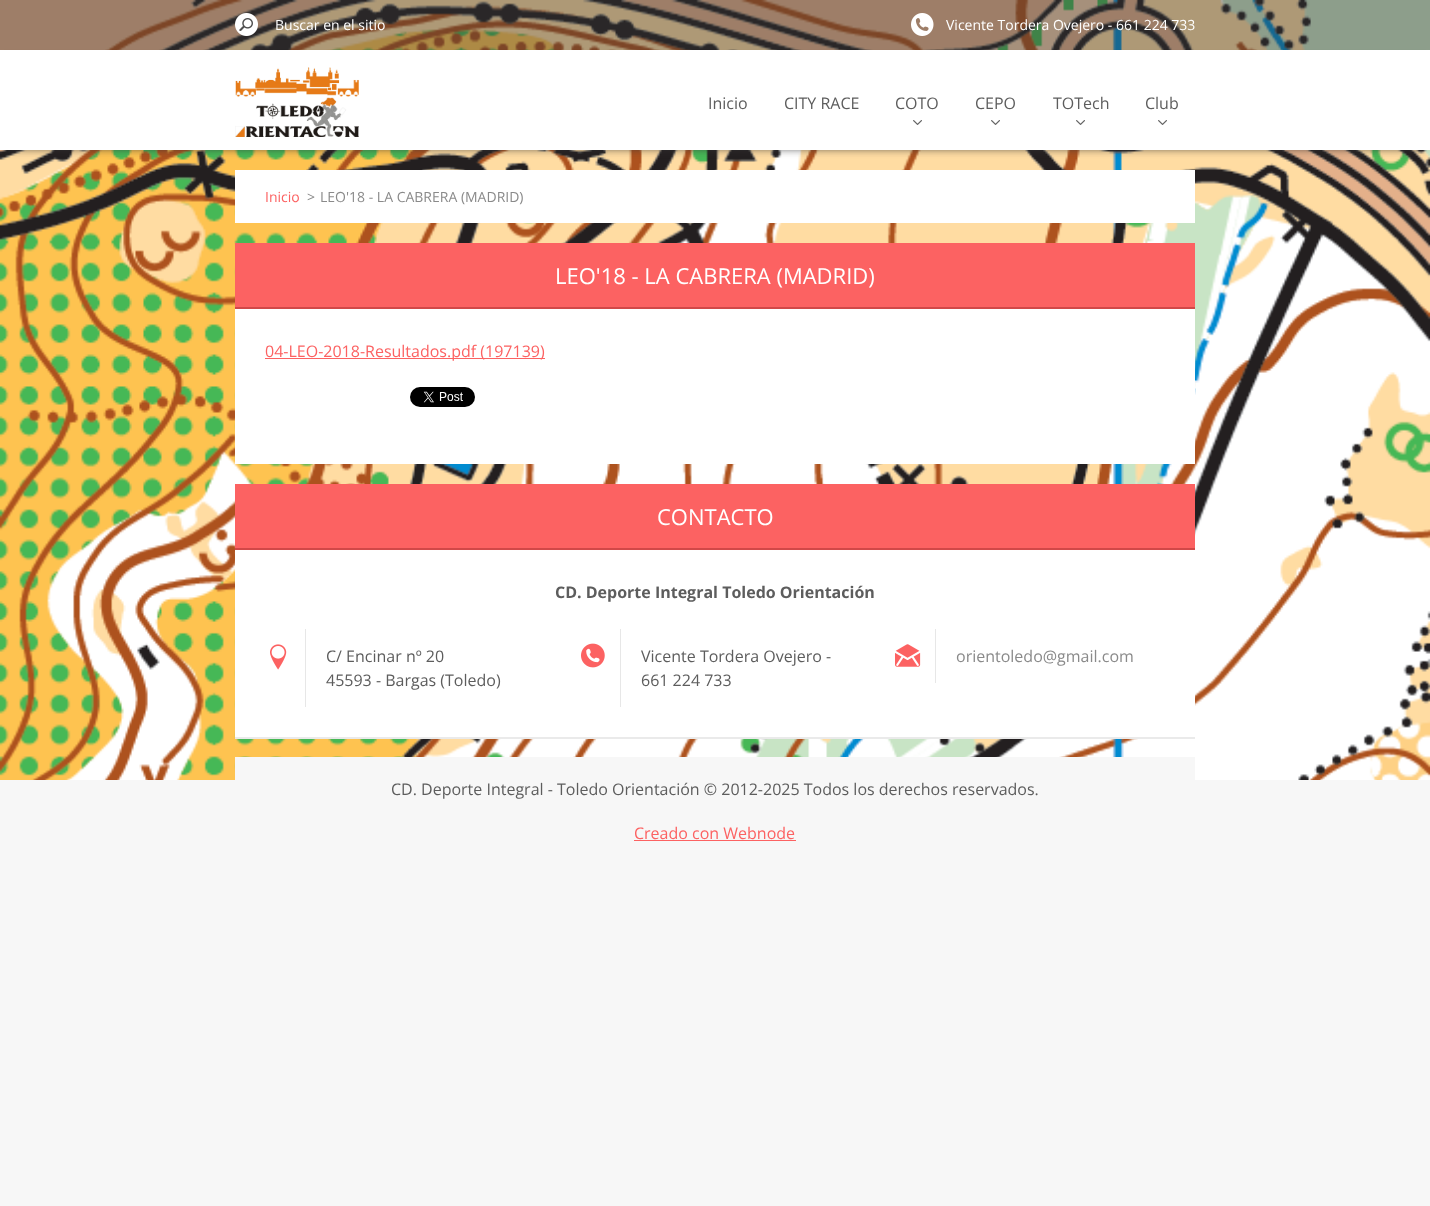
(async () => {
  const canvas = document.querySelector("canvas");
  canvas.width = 1430;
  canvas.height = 1206;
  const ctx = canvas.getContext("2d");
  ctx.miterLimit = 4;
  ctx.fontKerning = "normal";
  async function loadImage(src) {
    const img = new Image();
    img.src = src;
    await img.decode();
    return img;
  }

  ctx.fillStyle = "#f7f7f7";
  ctx.fillRect(0, 0, 1430, 1206);
  ctx.drawImage(await loadImage("img/1.png"), 0, 0, 1430, 780);
  ctx.fillStyle = "rgba(53, 53, 53, 0.4)";
  ctx.fillRect(0, 0, 1430, 50);
  ctx.drawImage(await loadImage("img/2.png"), 235, 13, 23, 23);
  ctx.drawImage(await loadImage("img/3.png"), 911, 13, 23, 23);
  ctx.fillStyle = "#353535";
  ctx.filter = "blur(5px)";
  ctx.beginPath();
  ctx.rect(6, 60, 1418, 88);
  ctx.fill();
  ctx.filter = "none";
  ctx.fillStyle = "#ffffff";
  ctx.fillRect(0, 50, 1430, 100);
  ctx.drawImage(await loadImage("img/4.png"), 235, 67, 124, 70);
  ctx.drawImage(await loadImage("img/5.png"), 913, 120, 9, 5);
  ctx.drawImage(await loadImage("img/5.png"), 991, 120, 9, 5);
  ctx.drawImage(await loadImage("img/5.png"), 1076, 120, 9, 5);
  ctx.drawImage(await loadImage("img/5.png"), 1158, 120, 9, 5);
  for (const [x, y, w, h, color] of [
    [235, 170, 960, 53, "#ffffff"],
    [235, 309, 960, 155, "#ffffff"],
    [235, 243, 960, 64, "#fc6262"],
    [235, 307, 960, 2, "#d14848"],
    [265, 358, 280, 1, "#fc6262"],
  ]) {
    ctx.fillStyle = color;
    ctx.fillRect(x, y, w, h);
  }
  ctx.drawImage(await loadImage("img/6.png"), 410, 387, 65, 20);
  for (const [x, y, w, h, color] of [
    [235, 737, 960, 2, "#eaeaea"],
    [235, 550, 960, 187, "#ffffff"],
    [235, 484, 960, 64, "#fc6262"],
    [235, 548, 960, 2, "#d14848"],
  ]) {
    ctx.fillStyle = color;
    ctx.fillRect(x, y, w, h);
  }
  ctx.drawImage(await loadImage("img/7.png"), 270, 644, 17, 26);
  ctx.fillStyle = "#e7e7e7";
  ctx.fillRect(305, 629, 1, 78);
  ctx.drawImage(await loadImage("img/8.png"), 581, 643, 24, 25);
  ctx.fillRect(620, 629, 1, 78);
  ctx.drawImage(await loadImage("img/9.png"), 895, 644, 26, 23);
  for (const [x, y, w, h, color] of [
    [935, 629, 1, 54, "#e7e7e7"],
    [235, 757, 960, 23, "#f7f7f7"],
    [634, 840, 162, 1, "#fc6262"],
  ]) {
    ctx.fillStyle = color;
    ctx.fillRect(x, y, w, h);
  }
  ctx.font = "14px Open Sans";
  ctx.fillStyle = "#ffffff";
  ctx.fillText("Buscar en el sitio", 275, 30);
  ctx.fillText("Vicente Tordera Ovejero - 661 224 733", 946, 30);
  ctx.font = "16px Open Sans";
  ctx.fillStyle = "#5d5d5d";
  for (const [text, x, y] of [
    ["Inicio", 708, 109],
    ["CITY RACE", 784, 109],
    ["COTO", 895, 109],
    ["CEPO", 975, 109],
    ["TOTech", 1053, 109],
    ["Club", 1145, 109],
  ]) {
    ctx.fillText(text, x, y);
  }
  ctx.font = "14px Open Sans";
  ctx.fillStyle = "#fc6262";
  ctx.fillText("Inicio", 265, 202);
  ctx.fillStyle = "#8a8a8a";
  ctx.fillText(">", 307, 202);
  ctx.fillText("LEO'18 - LA CABRERA (MADRID)", 320, 202);
  ctx.font = "22px Open Sans";
  ctx.fillStyle = "#ffffff";
  ctx.fillText("LEO'18 - LA CABRERA (MADRID)", 555, 284);
  ctx.font = "16px Open Sans";
  ctx.fillStyle = "#fc6262";
  ctx.fillText("04-LEO-2018-Resultados.pdf (197139)", 265, 357);
  ctx.font = "22px Open Sans";
  ctx.fillStyle = "#ffffff";
  ctx.fillText("CONTACTO", 657, 525);
  ctx.font = "bold 16px Open Sans";
  ctx.fillStyle = "#5d5d5d";
  ctx.fillText("CD. Deporte Integral Toledo Orientación", 555, 598);
  ctx.font = "16px Open Sans";
  for (const [text, x, y] of [
    ["C/ Encinar nº 20", 326, 662],
    ["45593 - Bargas (Toledo)", 326, 686],
    ["Vicente Tordera Ovejero -", 641, 662],
    ["661 224 733", 641, 686],
  ]) {
    ctx.fillText(text, x, y);
  }
  ctx.fillStyle = "#8a8a8a";
  ctx.fillText("orientoledo@gmail.com", 956, 662);
  ctx.fillStyle = "#5d5d5d";
  ctx.fillText("CD. Deporte Integral - Toledo Orientación © 2012-2025 Todos los derechos reservados.", 391, 795);
  ctx.fillStyle = "#fc6262";
  ctx.fillText("Creado con Webnode", 634, 839);
})();
